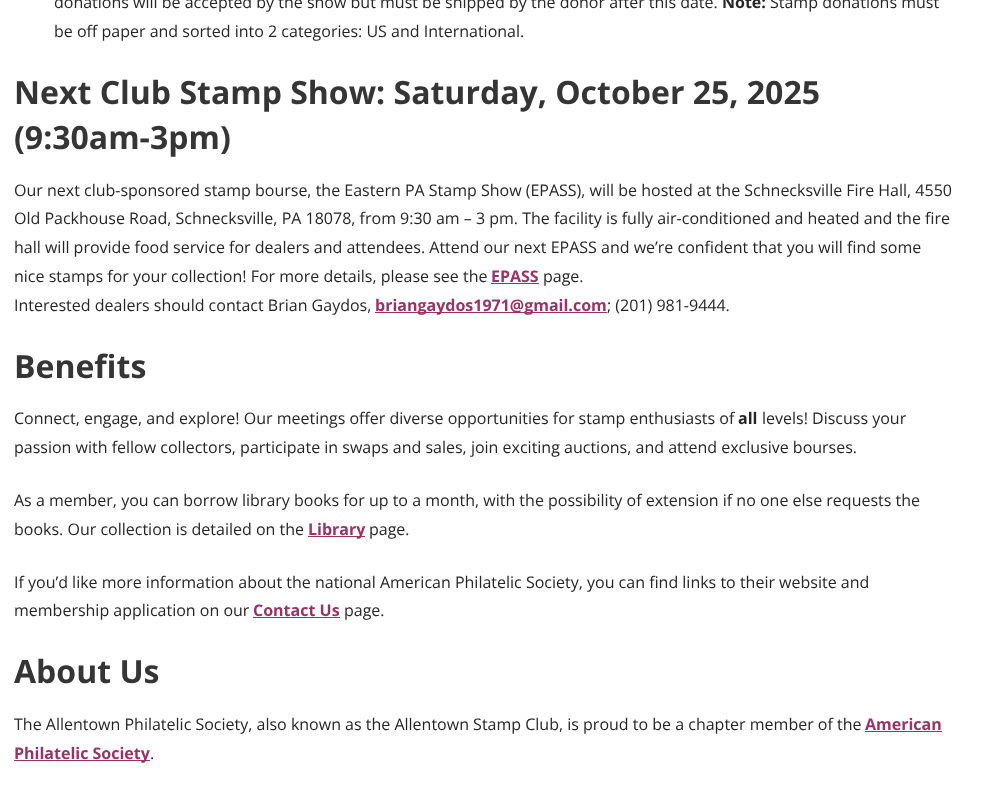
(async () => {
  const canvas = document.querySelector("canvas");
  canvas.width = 984;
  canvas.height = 798;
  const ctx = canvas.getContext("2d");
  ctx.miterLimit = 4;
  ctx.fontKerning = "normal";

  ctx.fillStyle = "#ffffff";
  ctx.fillRect(0, 0, 984, 798);
  for (const [x, y, w, h, color] of [
    [491, 283, 48, 1, "#993366"],
    [375, 312, 232, 1, "#993366"],
    [308, 536, 57, 1, "#993366"],
    [253, 617, 87, 1, "#993366"],
    [865, 731, 77, 1, "#993366"],
    [14, 760, 136, 1, "#993366"],
  ]) {
    ctx.fillStyle = color;
    ctx.fillRect(x, y, w, h);
  }
  ctx.font = "16px Open Sans";
  ctx.fillStyle = "#252525";
  ctx.fillText("donations will be accepted by the show but must be shipped by the donor after this date.", 54, 8);
  ctx.font = "bold 16px Open Sans";
  ctx.fillText("Note:", 722, 8);
  ctx.font = "16px Open Sans";
  ctx.fillText("Stamp donations must", 770, 8);
  ctx.fillText("be off paper and sorted into 2 categories: US and International.", 54, 37);
  ctx.font = "bold 32px Open Sans";
  ctx.fillStyle = "#353535";
  ctx.fillText("Next Club Stamp Show: Saturday, October 25, 2025", 14, 104);
  ctx.fillText("(9:30am-3pm)", 14, 149);
  ctx.font = "16px Open Sans";
  ctx.fillStyle = "#252525";
  for (const [text, x, y] of [
    ["Our next club-sponsored stamp bourse, the Eastern PA Stamp Show (EPASS), will be hosted at the Schnecksville Fire Hall, 4550", 14, 196],
    ["Old Packhouse Road, Schnecksville, PA 18078, from 9:30 am – 3 pm. The facility is fully air-conditioned and heated and the fire", 14, 224],
    ["hall will provide food service for dealers and attendees. Attend our next EPASS and we’re confident that you will find some", 14, 253],
    ["nice stamps for your collection! For more details, please see the", 14, 282],
  ]) {
    ctx.fillText(text, x, y);
  }
  ctx.font = "bold 16px Open Sans";
  ctx.fillStyle = "#993366";
  ctx.fillText("EPASS", 491, 282);
  ctx.font = "16px Open Sans";
  ctx.fillStyle = "#252525";
  ctx.fillText("page.", 543, 282);
  ctx.fillText("Interested dealers should contact Brian Gaydos,", 14, 311);
  ctx.font = "bold 16px Open Sans";
  ctx.fillStyle = "#993366";
  ctx.fillText("briangaydos1971@gmail.com", 375, 311);
  ctx.font = "16px Open Sans";
  ctx.fillStyle = "#252525";
  ctx.fillText("; (201) 981-9444.", 607, 311);
  ctx.font = "bold 32px Open Sans";
  ctx.fillStyle = "#353535";
  ctx.fillText("Benefits", 14, 378);
  ctx.font = "16px Open Sans";
  ctx.fillStyle = "#252525";
  ctx.fillText("Connect, engage, and explore! Our meetings offer diverse opportunities for stamp enthusiasts of", 14, 424);
  ctx.font = "bold 16px Open Sans";
  ctx.fillText("all", 738, 424);
  ctx.font = "16px Open Sans";
  for (const [text, x, y] of [
    ["levels! Discuss your", 762, 424],
    ["passion with fellow collectors, participate in swaps and sales, join exciting auctions, and attend exclusive bourses.", 14, 453],
    ["As a member, you can borrow library books for up to a month, with the possibility of extension if no one else requests the", 14, 506],
    ["books. Our collection is detailed on the", 14, 535],
  ]) {
    ctx.fillText(text, x, y);
  }
  ctx.font = "bold 16px Open Sans";
  ctx.fillStyle = "#993366";
  ctx.fillText("Library", 308, 535);
  ctx.font = "16px Open Sans";
  ctx.fillStyle = "#252525";
  for (const [text, x, y] of [
    ["page.", 369, 535],
    ["If you’d like more information about the national American Philatelic Society, you can find links to their website and", 14, 588],
    ["membership application on our", 14, 616],
  ]) {
    ctx.fillText(text, x, y);
  }
  ctx.font = "bold 16px Open Sans";
  ctx.fillStyle = "#993366";
  ctx.fillText("Contact Us", 253, 616);
  ctx.font = "16px Open Sans";
  ctx.fillStyle = "#252525";
  ctx.fillText("page.", 344, 616);
  ctx.font = "bold 32px Open Sans";
  ctx.fillStyle = "#353535";
  ctx.fillText("About Us", 14, 683);
  ctx.font = "16px Open Sans";
  ctx.fillStyle = "#252525";
  ctx.fillText("The Allentown Philatelic Society, also known as the Allentown Stamp Club, is proud to be a chapter member of the", 14, 730);
  ctx.font = "bold 16px Open Sans";
  ctx.fillStyle = "#993366";
  ctx.fillText("American", 865, 730);
  ctx.fillText("Philatelic Society", 14, 759);
  ctx.font = "16px Open Sans";
  ctx.fillStyle = "#252525";
  ctx.fillText(".", 150, 759);
})();
